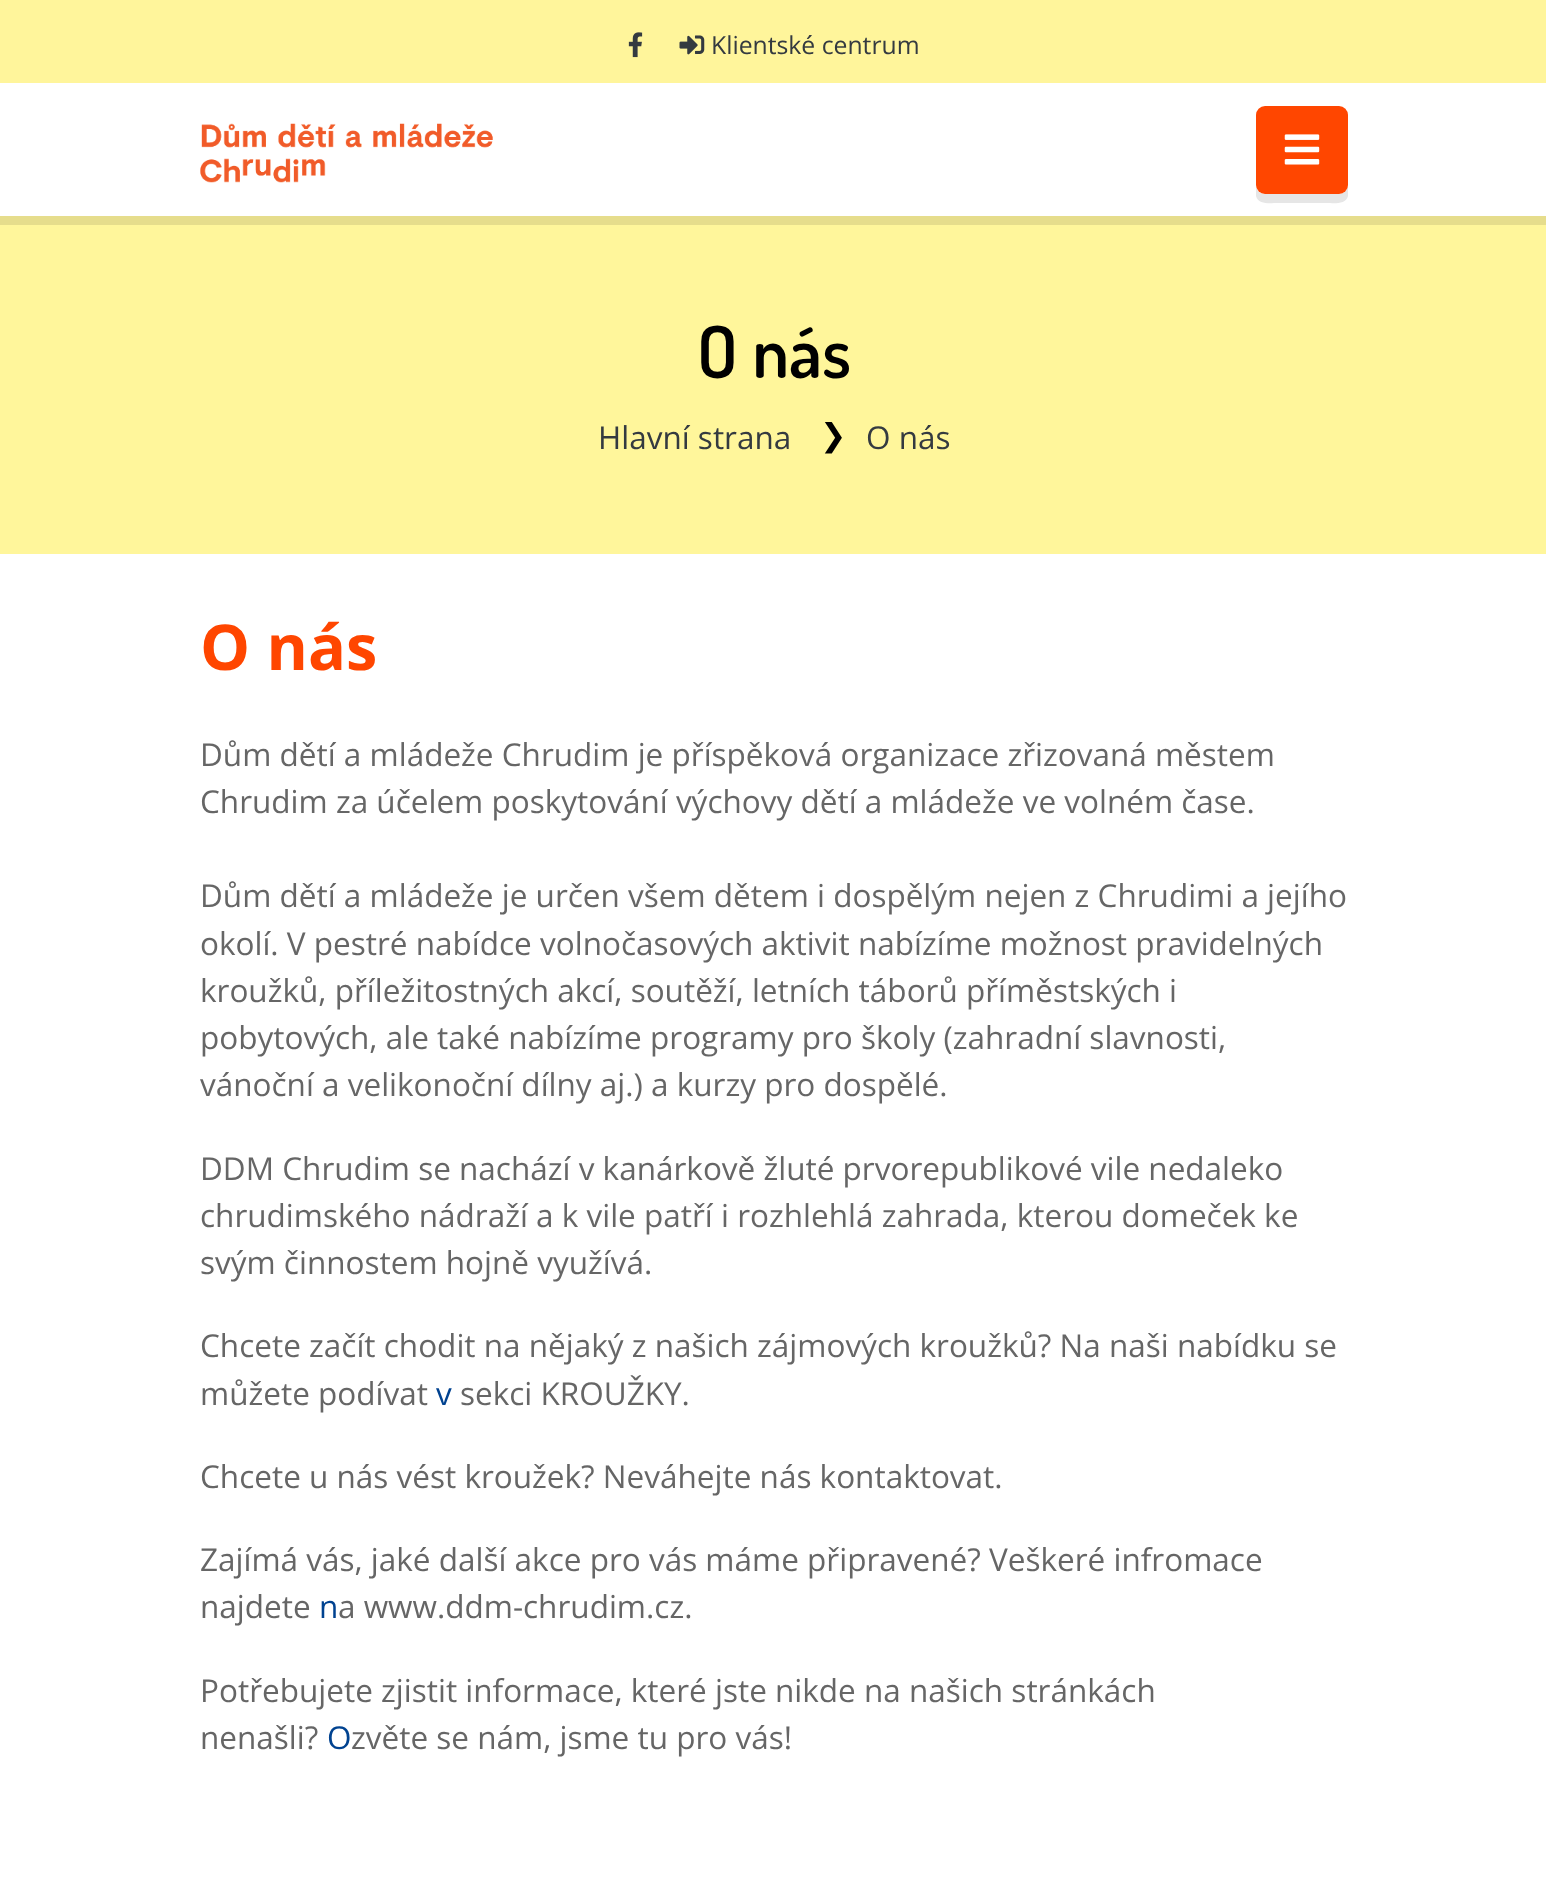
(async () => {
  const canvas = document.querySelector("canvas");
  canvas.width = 1546;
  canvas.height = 1904;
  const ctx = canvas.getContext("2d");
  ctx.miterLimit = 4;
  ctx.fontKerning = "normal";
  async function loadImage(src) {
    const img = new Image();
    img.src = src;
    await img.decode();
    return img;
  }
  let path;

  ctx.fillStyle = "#ffffff";
  ctx.fillRect(0, 0, 1546, 1904);
  ctx.fillStyle = "#fff59b";
  ctx.fillRect(0, 0, 1546, 83);
  ctx.drawImage(await loadImage("img/1.png"), 628, 32, 15, 26);
  ctx.drawImage(await loadImage("img/2.png"), 679, 35, 26, 20);
  ctx.fillStyle = "#e6dd8c";
  ctx.fillRect(0, 216, 1546, 9);
  ctx.drawImage(await loadImage("img/3.png"), 200, 123, 293, 60);
  ctx.fillStyle = "#e6e6e6";
  path = new Path2D("M1256 187V196C1258 205 1271 203 1277 203H1327C1333 203 1346 205 1348 196V122V184C1348 189 1344 194 1339 194H1264C1261 194 1257 191 1256 187Z");
  ctx.fill(path);
  ctx.fillStyle = "#ff4600";
  ctx.beginPath();
  ctx.roundRect(1256, 106, 92, 88, 9);
  ctx.fill();
  ctx.drawImage(await loadImage("img/4.png"), 1284, 134, 36, 31);
  ctx.fillStyle = "#fff69b";
  ctx.fillRect(0, 225, 1546, 329);
  ctx.font = "24.75px Open Sans";
  ctx.fillStyle = "#343a40";
  ctx.fillText("Klientské centrum", 711, 54);
  ctx.font = "600 72px Dosis";
  ctx.fillStyle = "#000000";
  ctx.fillText("O nás", 697, 378);
  ctx.font = "31.5px Open Sans";
  ctx.fillStyle = "#343a40";
  ctx.fillText("Hlavní strana", 598, 449);
  ctx.font = "31.5px DejaVu Sans";
  ctx.fillStyle = "#000000";
  ctx.fillText("❯", 820, 446);
  ctx.font = "31.5px Open Sans";
  ctx.fillStyle = "#343a40";
  ctx.fillText("O nás", 866, 449);
  ctx.font = "bold 63px Open Sans";
  ctx.fillStyle = "#ff4600";
  ctx.fillText("O nás", 200, 670);
  ctx.font = "31.5px Open Sans";
  ctx.fillStyle = "#666666";
  for (const [text, x, y] of [
    ["Dům dětí a mládeže Chrudim je příspěková organizace zřizovaná městem", 200, 766],
    ["Chrudim za účelem poskytování výchovy dětí a mládeže ve volném čase.", 200, 813],
    ["Dům dětí a mládeže je určen všem dětem i dospělým nejen z Chrudimi a jejího", 200, 907],
    ["okolí. V pestré nabídce volnočasových aktivit nabízíme možnost pravidelných", 200, 955],
    ["kroužků, příležitostných akcí, soutěží, letních táborů příměstských i", 200, 1002],
    ["pobytových, ale také nabízíme programy pro školy (zahradní slavnosti,", 200, 1049],
    ["vánoční a velikonoční dílny aj.) a kurzy pro dospělé.", 200, 1096],
    ["DDM Chrudim se nachází v kanárkově žluté prvorepublikové vile nedaleko", 200, 1180],
    ["chrudimského nádraží a k vile patří i rozhlehlá zahrada, kterou domeček ke", 200, 1227],
    ["svým činnostem hojně využívá.", 200, 1274],
    ["Chcete začít chodit na nějaký z našich zájmových kroužků? Na naši nabídku se", 200, 1357],
    ["můžete podívat", 200, 1405],
  ]) {
    ctx.fillText(text, x, y);
  }
  ctx.fillStyle = "#004290";
  ctx.fillText("v", 436, 1405);
  ctx.fillStyle = "#666666";
  for (const [text, x, y] of [
    ["sekci KROUŽKY.", 460, 1405],
    ["Chcete u nás vést kroužek? Neváhejte nás kontaktovat.", 200, 1488],
    ["Zajímá vás, jaké další akce pro vás máme připravené? Veškeré infromace", 200, 1571],
    ["najdete", 200, 1618],
  ]) {
    ctx.fillText(text, x, y);
  }
  ctx.fillStyle = "#004290";
  ctx.fillText("n", 319, 1618);
  ctx.fillStyle = "#666666";
  for (const [text, x, y] of [
    ["a www.ddm-chrudim.cz.", 338, 1618],
    ["Potřebujete zjistit informace, které jste nikde na našich stránkách", 200, 1702],
    ["nenašli?", 200, 1749],
  ]) {
    ctx.fillText(text, x, y);
  }
  ctx.fillStyle = "#004290";
  ctx.fillText("O", 327, 1749);
  ctx.fillStyle = "#666666";
  ctx.fillText("zvěte se nám, jsme tu pro vás!", 351, 1749);
})();
